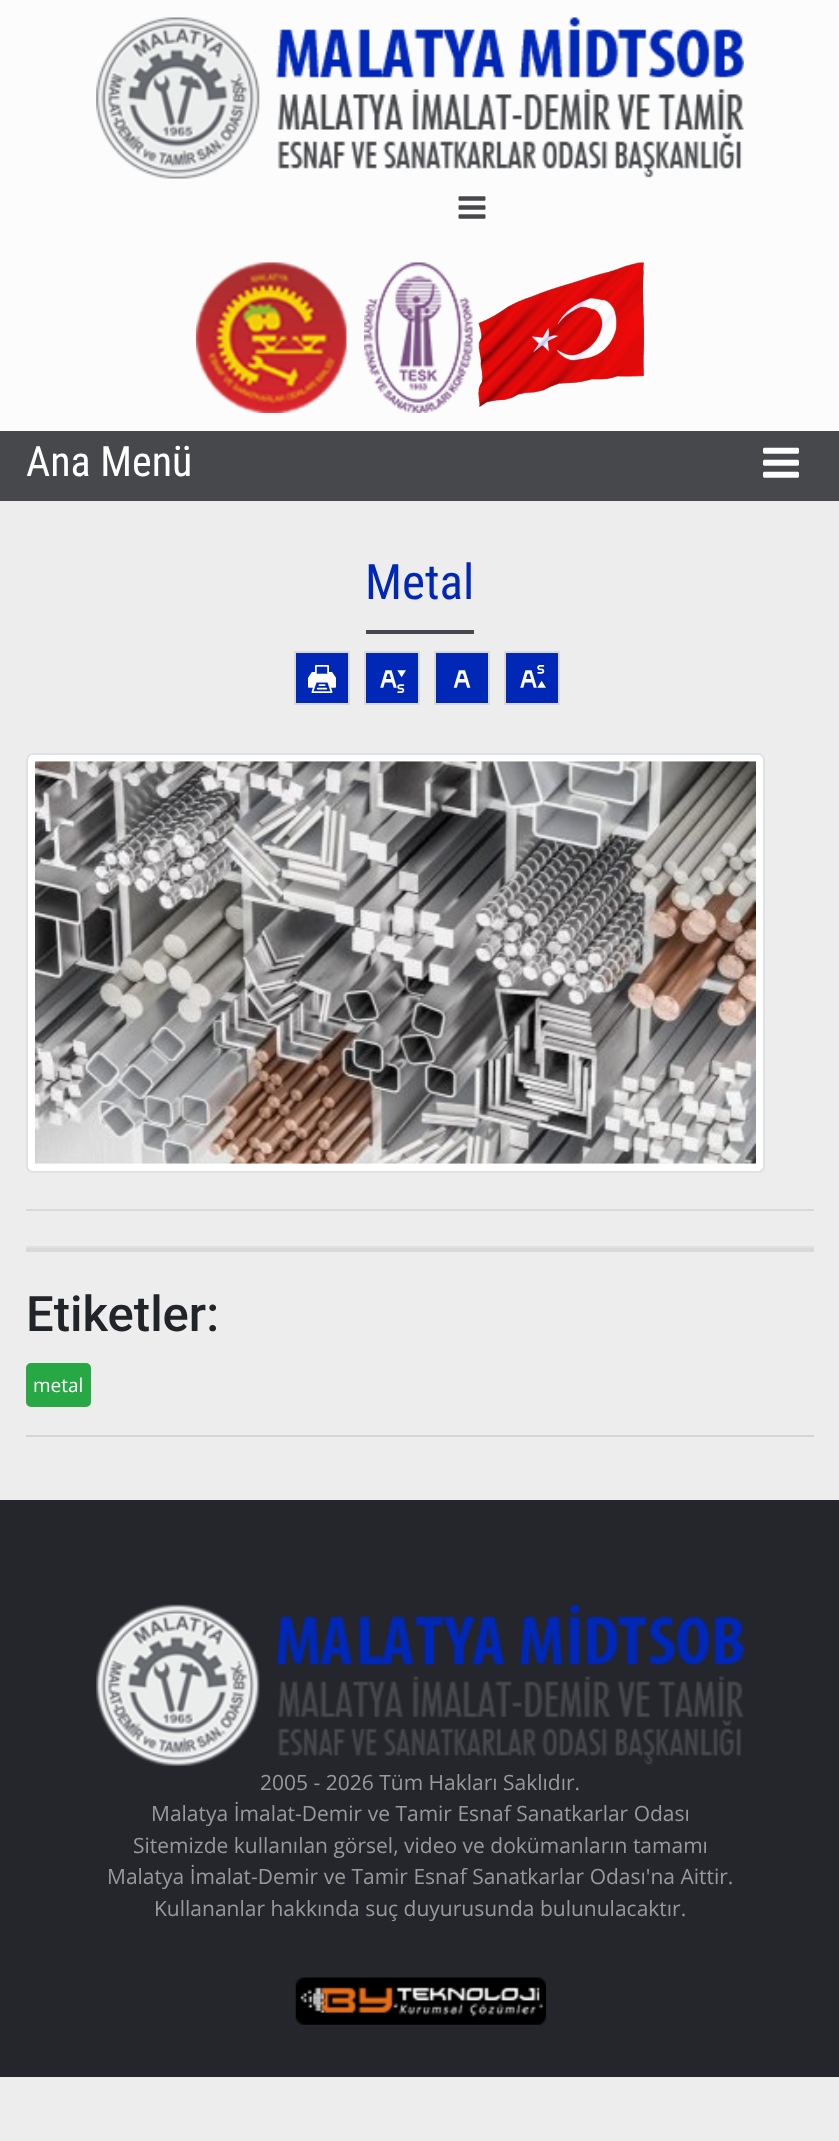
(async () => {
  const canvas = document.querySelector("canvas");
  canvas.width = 839;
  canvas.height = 2141;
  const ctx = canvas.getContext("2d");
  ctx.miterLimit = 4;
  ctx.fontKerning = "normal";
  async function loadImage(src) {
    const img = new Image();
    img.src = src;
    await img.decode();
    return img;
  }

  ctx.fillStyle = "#ededed";
  ctx.fillRect(0, 0, 839, 2141);
  ctx.fillStyle = "#fcfcfc";
  ctx.fillRect(0, 0, 839, 431);
  ctx.drawImage(await loadImage("img/1.png"), 96, 17, 648, 162);
  ctx.drawImage(await loadImage("img/2.png"), 458, 196, 28, 23);
  ctx.drawImage(await loadImage("img/3.png"), 196, 262, 151, 151);
  ctx.drawImage(await loadImage("img/4.png"), 364, 262, 109, 151);
  ctx.drawImage(await loadImage("img/5.png"), 478, 262, 166, 145);
  ctx.fillStyle = "#46484b";
  ctx.fillRect(0, 431, 839, 70);
  ctx.drawImage(await loadImage("img/6.png"), 763, 447, 36, 31);
  ctx.fillRect(366, 630, 108, 4);
  ctx.fillStyle = "#0027b6";
  ctx.beginPath();
  ctx.rect(295, 652, 54, 52);
  ctx.fill();
  ctx.strokeStyle = "#d9d9d9";
  ctx.lineWidth = 2;
  ctx.stroke();
  ctx.drawImage(await loadImage("img/7.png"), 308, 665, 28, 28);
  ctx.beginPath();
  ctx.rect(365, 652, 54, 52);
  ctx.fill();
  ctx.stroke();
  ctx.drawImage(await loadImage("img/8.png"), 380, 670, 26, 23);
  ctx.beginPath();
  ctx.rect(435, 652, 54, 52);
  ctx.fill();
  ctx.stroke();
  ctx.drawImage(await loadImage("img/9.png"), 453, 670, 18, 18);
  ctx.beginPath();
  ctx.rect(505, 652, 54, 52);
  ctx.fill();
  ctx.stroke();
  ctx.drawImage(await loadImage("img/10.png"), 520, 665, 26, 23);
  ctx.fillStyle = "#ffffff";
  ctx.beginPath();
  ctx.roundRect(27, 754, 737, 418, 6);
  ctx.fill();
  ctx.strokeStyle = "#dee2e6";
  ctx.stroke();
  ctx.drawImage(await loadImage("img/11.png"), 35, 761, 721, 403);
  for (const [x, y, w, h, color] of [
    [26, 1209, 788, 2, "#d9d9d9"],
    [26, 1246, 788, 2, "#dee2e6"],
    [26, 1248, 788, 4, "#d9d9d9"],
  ]) {
    ctx.fillStyle = color;
    ctx.fillRect(x, y, w, h);
  }
  ctx.fillStyle = "#28a745";
  ctx.beginPath();
  ctx.roundRect(27, 1364, 63, 42, 4);
  ctx.fill();
  ctx.strokeStyle = "#28a745";
  ctx.stroke();
  ctx.fillStyle = "#d5d5d5";
  ctx.fillRect(26, 1435, 788, 2);
  ctx.fillStyle = "#24262b";
  ctx.fillRect(0, 1500, 839, 577);
  ctx.drawImage(await loadImage("img/12.png"), 96, 1604, 648, 162);
  ctx.drawImage(await loadImage("img/13.png"), 295, 1977, 251, 48);
  ctx.font = "42px Roboto Condensed";
  ctx.fillStyle = "#ffffff";
  ctx.fillText("Ana Menü", 26, 476);
  ctx.font = "49px Roboto Condensed";
  ctx.fillStyle = "#0027b6";
  ctx.fillText("Metal", 365, 599);
  ctx.font = "500 49px Roboto";
  ctx.fillStyle = "#212529";
  ctx.fillText("Etiketler:", 26, 1331);
  ctx.font = "19px Open Sans";
  ctx.fillStyle = "#ffffff";
  ctx.fillText("metal", 33, 1392);
  ctx.font = "21px Open Sans";
  ctx.fillStyle = "#999999";
  for (const [text, x, y] of [
    ["2005 - 2026 Tüm Hakları Saklıdır.", 260, 1790],
    ["Malatya İmalat-Demir ve Tamir Esnaf Sanatkarlar Odası", 151, 1821],
    ["Sitemizde kullanılan görsel, video ve dokümanların tamamı", 133, 1853],
    ["Malatya İmalat-Demir ve Tamir Esnaf Sanatkarlar Odası'na Aittir.", 107, 1884],
    ["Kullananlar hakkında suç duyurusunda bulunulacaktır.", 154, 1916],
  ]) {
    ctx.fillText(text, x, y);
  }
})();
